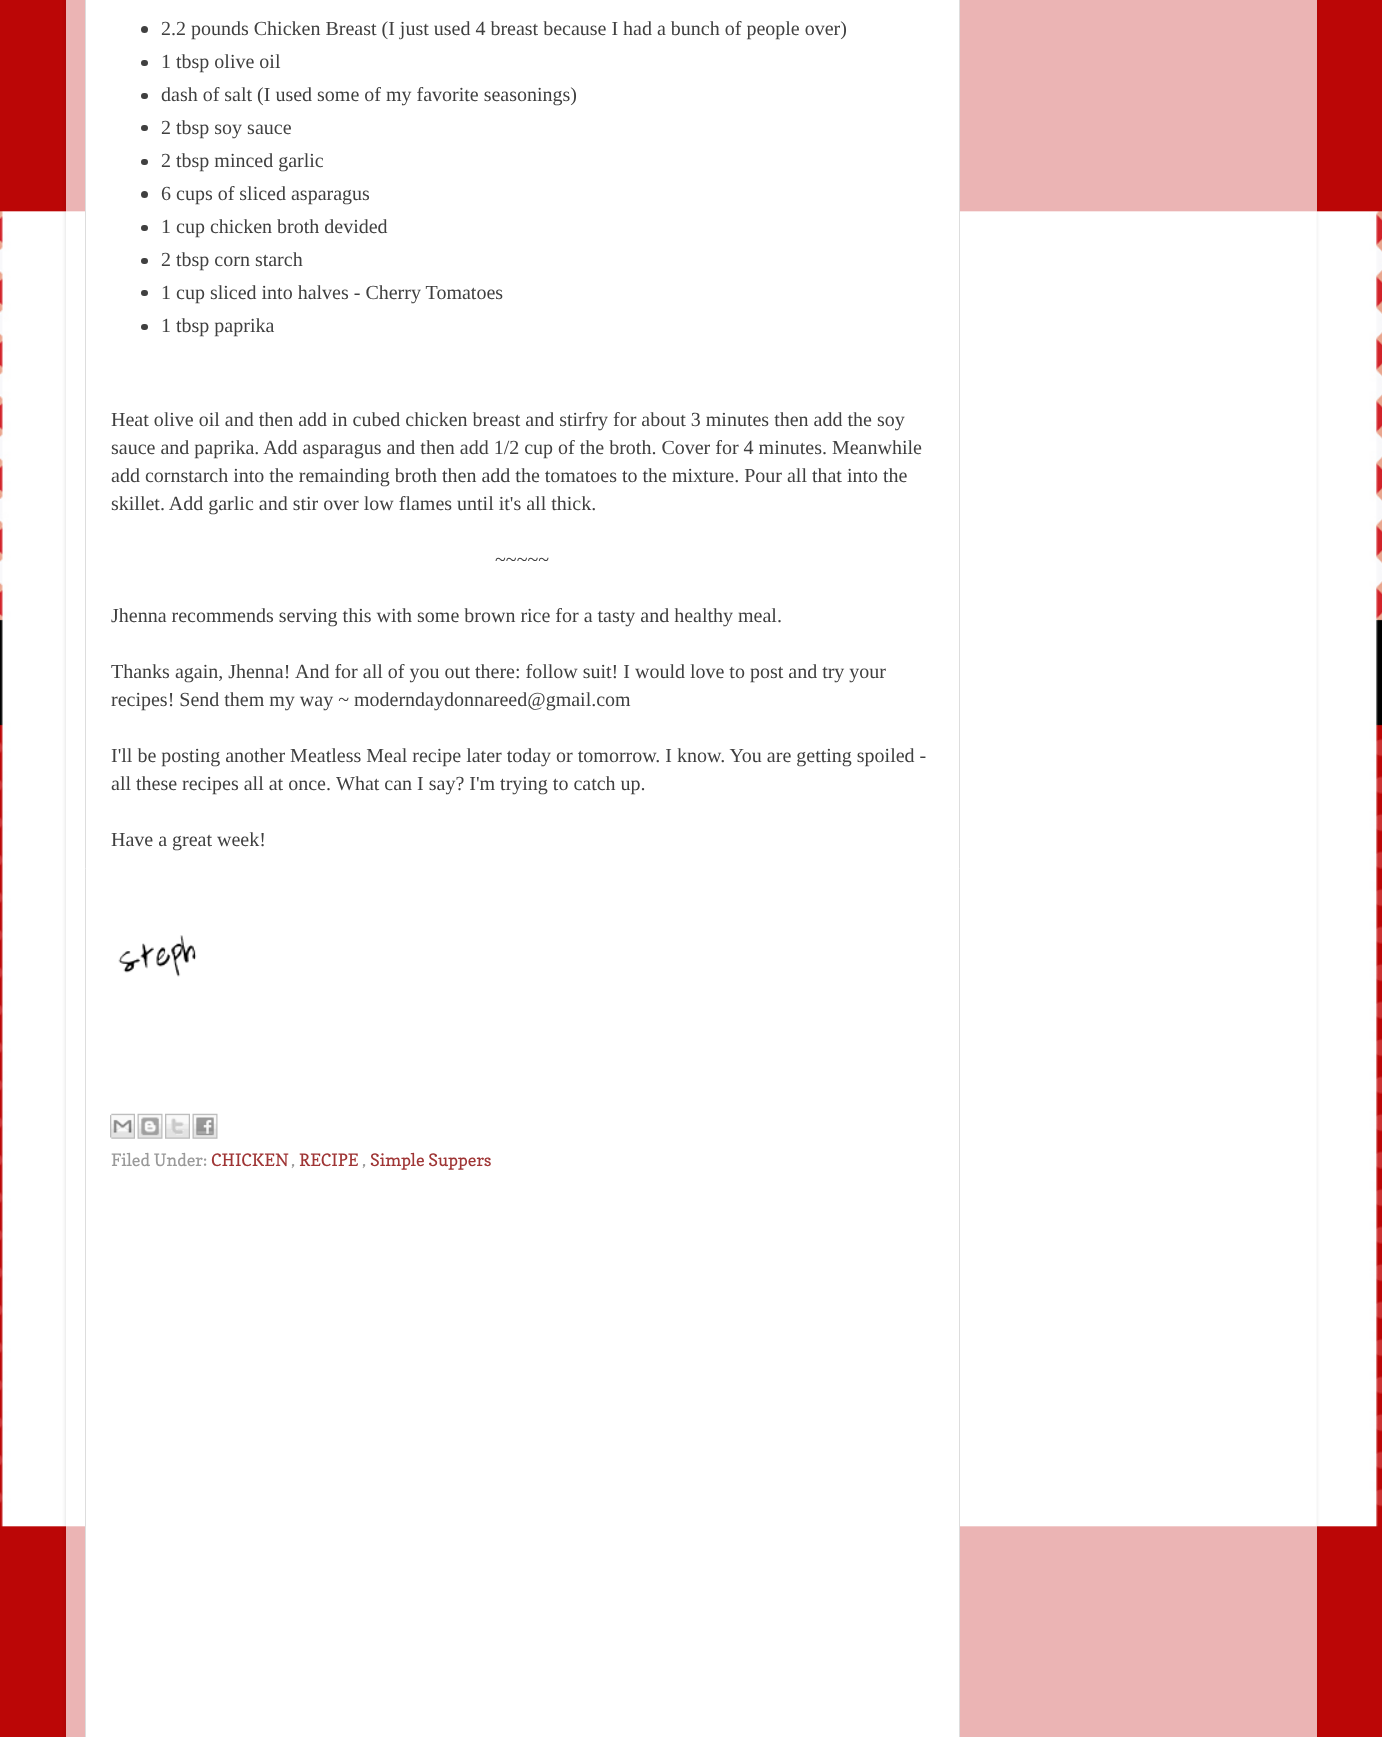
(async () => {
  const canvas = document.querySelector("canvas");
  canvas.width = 1382;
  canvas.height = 1737;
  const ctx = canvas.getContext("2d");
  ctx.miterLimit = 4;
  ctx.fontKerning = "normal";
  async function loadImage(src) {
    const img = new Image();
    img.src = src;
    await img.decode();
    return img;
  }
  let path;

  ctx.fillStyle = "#bb0606";
  ctx.fillRect(0, 0, 1382, 1737);
  ctx.drawImage(await loadImage("img/1.png"), 0, 211, 1382, 1316);
  ctx.save();
  path = new Path2D("M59 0H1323V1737H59ZM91-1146H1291C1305-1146 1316-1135 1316-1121V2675H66V-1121C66-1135 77-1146 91-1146Z");
  ctx.clip(path, "evenodd");
  ctx.fillStyle = "rgba(0, 0, 0, 0.15)";
  ctx.filter = "blur(2px)";
  ctx.beginPath();
  ctx.roundRect(66, -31, 1250, 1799, 25);
  ctx.fill();
  ctx.filter = "none";
  ctx.restore();
  ctx.fillStyle = "rgba(255, 255, 255, 0.7)";
  ctx.fillRect(66, 0, 1251, 1737);
  ctx.fillStyle = "#ffffff";
  ctx.beginPath();
  ctx.rect(85.5, -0.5, 874, 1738);
  ctx.fill();
  ctx.strokeStyle = "#dddddd";
  ctx.stroke();
  ctx.fillStyle = "#404040";
  ctx.beginPath();
  ctx.arc(144.5, 29.5, 3.5, 0, Math.PI * 2);
  ctx.fill();
  ctx.beginPath();
  ctx.roundRect(141, 60, 7, 6, 3);
  ctx.fill();
  ctx.beginPath();
  ctx.roundRect(141, 93, 7, 6, 3);
  ctx.fill();
  ctx.beginPath();
  ctx.roundRect(141, 125, 7, 6, 3);
  ctx.fill();
  ctx.beginPath();
  ctx.roundRect(141, 159, 7, 6, 3);
  ctx.fill();
  ctx.beginPath();
  ctx.arc(144.5, 194.5, 3.5, 0, Math.PI * 2);
  ctx.fill();
  ctx.beginPath();
  ctx.roundRect(141, 225, 7, 6, 3);
  ctx.fill();
  ctx.beginPath();
  ctx.roundRect(141, 258, 7, 6, 3);
  ctx.fill();
  ctx.beginPath();
  ctx.roundRect(141, 290, 7, 6, 3);
  ctx.fill();
  ctx.beginPath();
  ctx.roundRect(141, 324, 7, 6, 3);
  ctx.fill();
  ctx.drawImage(await loadImage("img/2.png"), 118, 935, 79, 42);
  ctx.drawImage(await loadImage("img/3.png"), 110, 1113, 25, 26);
  ctx.drawImage(await loadImage("img/4.png"), 137, 1113, 26, 26);
  ctx.drawImage(await loadImage("img/5.png"), 165, 1113, 25, 26);
  ctx.drawImage(await loadImage("img/6.png"), 192, 1113, 26, 26);
  ctx.font = "20px Liberation Serif";
  for (const [text, x, y] of [
    ["2.2 pounds Chicken Breast (I just used 4 breast because I had a bunch of people over)", 161, 35],
    ["1 tbsp olive oil", 161, 68],
    ["dash of salt (I used some of my favorite seasonings)", 161, 101],
    ["2 tbsp soy sauce", 161, 134],
    ["2 tbsp minced garlic", 161, 167],
    ["6 cups of sliced asparagus", 161, 200],
    ["1 cup chicken broth devided", 161, 233],
    ["2 tbsp corn starch", 161, 266],
    ["1 cup sliced into halves - Cherry Tomatoes", 161, 299],
    ["1 tbsp paprika", 161, 332],
    ["Heat olive oil and then add in cubed chicken breast and stirfry for about 3 minutes then add the soy", 111, 426],
    ["sauce and paprika. Add asparagus and then add 1/2 cup of the broth. Cover for 4 minutes. Meanwhile", 111, 454],
    ["add cornstarch into the remainding broth then add the tomatoes to the mixture. Pour all that into the", 111, 482],
    ["skillet. Add garlic and stir over low flames until it's all thick.", 111, 510],
    ["~~~~~", 495, 566],
    ["Jhenna recommends serving this with some brown rice for a tasty and healthy meal.", 111, 622],
    ["Thanks again, Jhenna!", 111, 678],
    ["And for all of you out there: follow suit! I would love to post and try your", 295, 678],
    ["recipes! Send them my way ~ moderndaydonnareed@gmail.com", 111, 706],
    ["I'll be posting another Meatless Meal recipe later today or tomorrow. I know. You are getting spoiled -", 111, 762],
    ["all these recipes all at once.", 111, 790],
    ["What can I say? I'm trying to catch up.", 336, 790],
    ["Have a great week!", 111, 846],
  ]) {
    ctx.fillText(text, x, y);
  }
  ctx.font = "17px Copse";
  ctx.fillStyle = "#9a9a9a";
  ctx.fillText("Filed Under:", 111, 1166);
  ctx.fillStyle = "#9f3535";
  ctx.fillText("CHICKEN", 211, 1166);
  ctx.fillStyle = "#9a9a9a";
  ctx.fillText(",", 291, 1166);
  ctx.fillStyle = "#9f3535";
  ctx.fillText("RECIPE", 299, 1166);
  ctx.fillStyle = "#9a9a9a";
  ctx.fillText(",", 362, 1166);
  ctx.fillStyle = "#9f3535";
  ctx.fillText("Simple Suppers", 370, 1166);
})();
